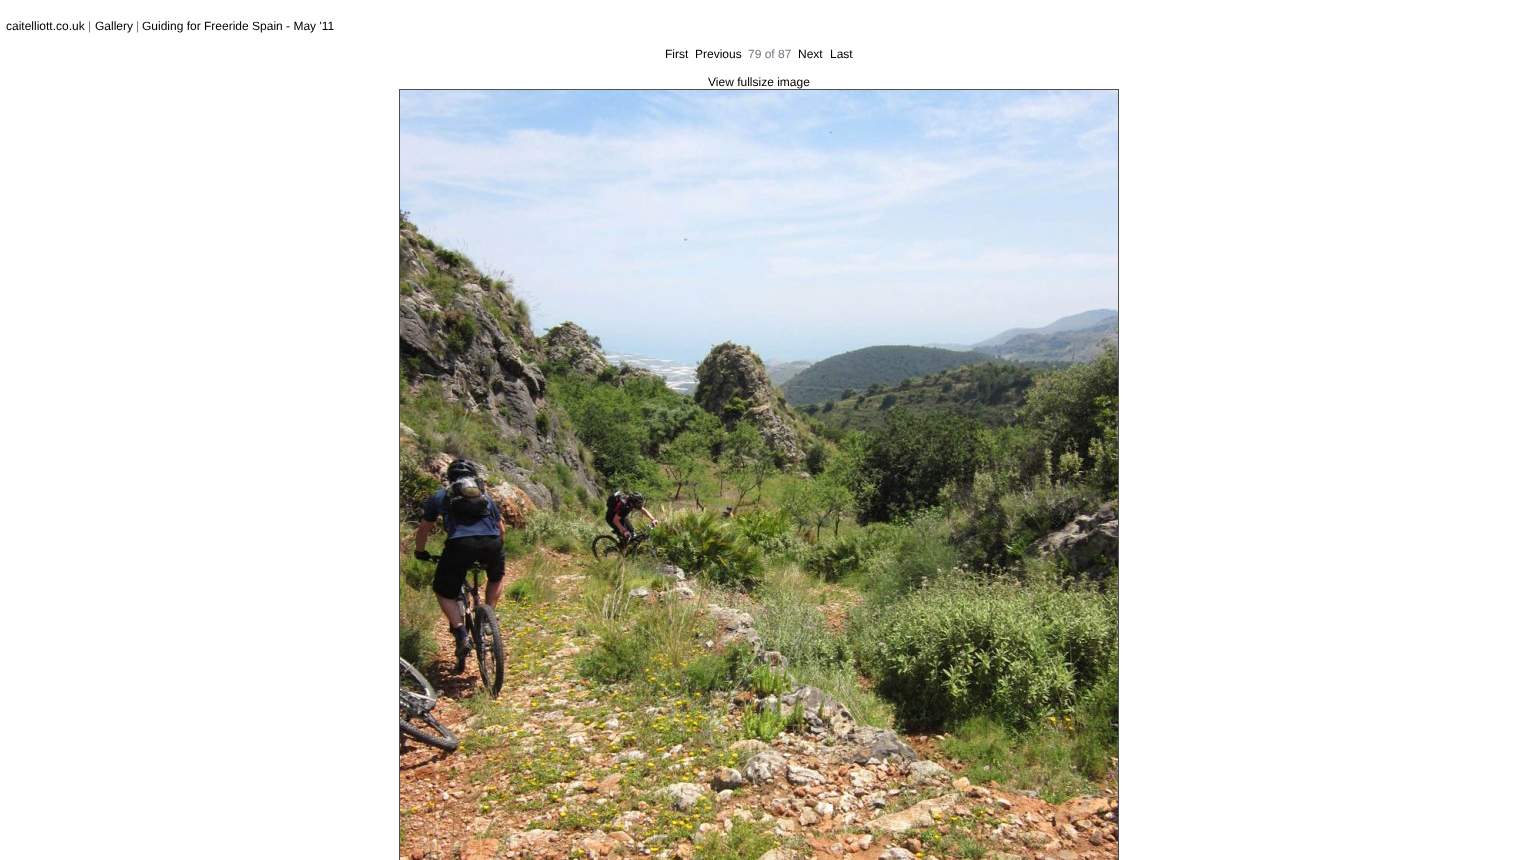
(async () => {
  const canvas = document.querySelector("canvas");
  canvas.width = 1517;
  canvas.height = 860;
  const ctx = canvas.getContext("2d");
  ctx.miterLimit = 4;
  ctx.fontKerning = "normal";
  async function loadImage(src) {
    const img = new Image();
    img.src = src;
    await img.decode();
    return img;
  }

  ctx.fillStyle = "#ffffff";
  ctx.fillRect(0, 0, 1517, 860);
  ctx.strokeStyle = "#505050";
  ctx.strokeRect(399.5, 89.5, 719, 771);
  ctx.drawImage(await loadImage("img/1.png"), 400, 90, 718, 770);
  ctx.font = "12px Liberation Sans";
  ctx.fillStyle = "#000000";
  ctx.fillText("caitelliott.co.uk", 6, 30);
  ctx.fillStyle = "#75757f";
  ctx.fillText("|", 88, 30);
  ctx.fillStyle = "#000000";
  ctx.fillText("Gallery", 95, 30);
  ctx.fillStyle = "#75757f";
  ctx.fillText("|", 136, 30);
  ctx.fillStyle = "#000000";
  for (const [text, x, y] of [
    ["Guiding for Freeride Spain - May '11", 142, 30],
    ["First", 665, 58],
    ["Previous", 695, 58],
  ]) {
    ctx.fillText(text, x, y);
  }
  ctx.fillStyle = "#75757f";
  ctx.fillText("79 of 87", 748, 58);
  ctx.fillStyle = "#000000";
  for (const [text, x, y] of [
    ["Next", 798, 58],
    ["Last", 830, 58],
    ["View fullsize image", 708, 86],
  ]) {
    ctx.fillText(text, x, y);
  }
})();
